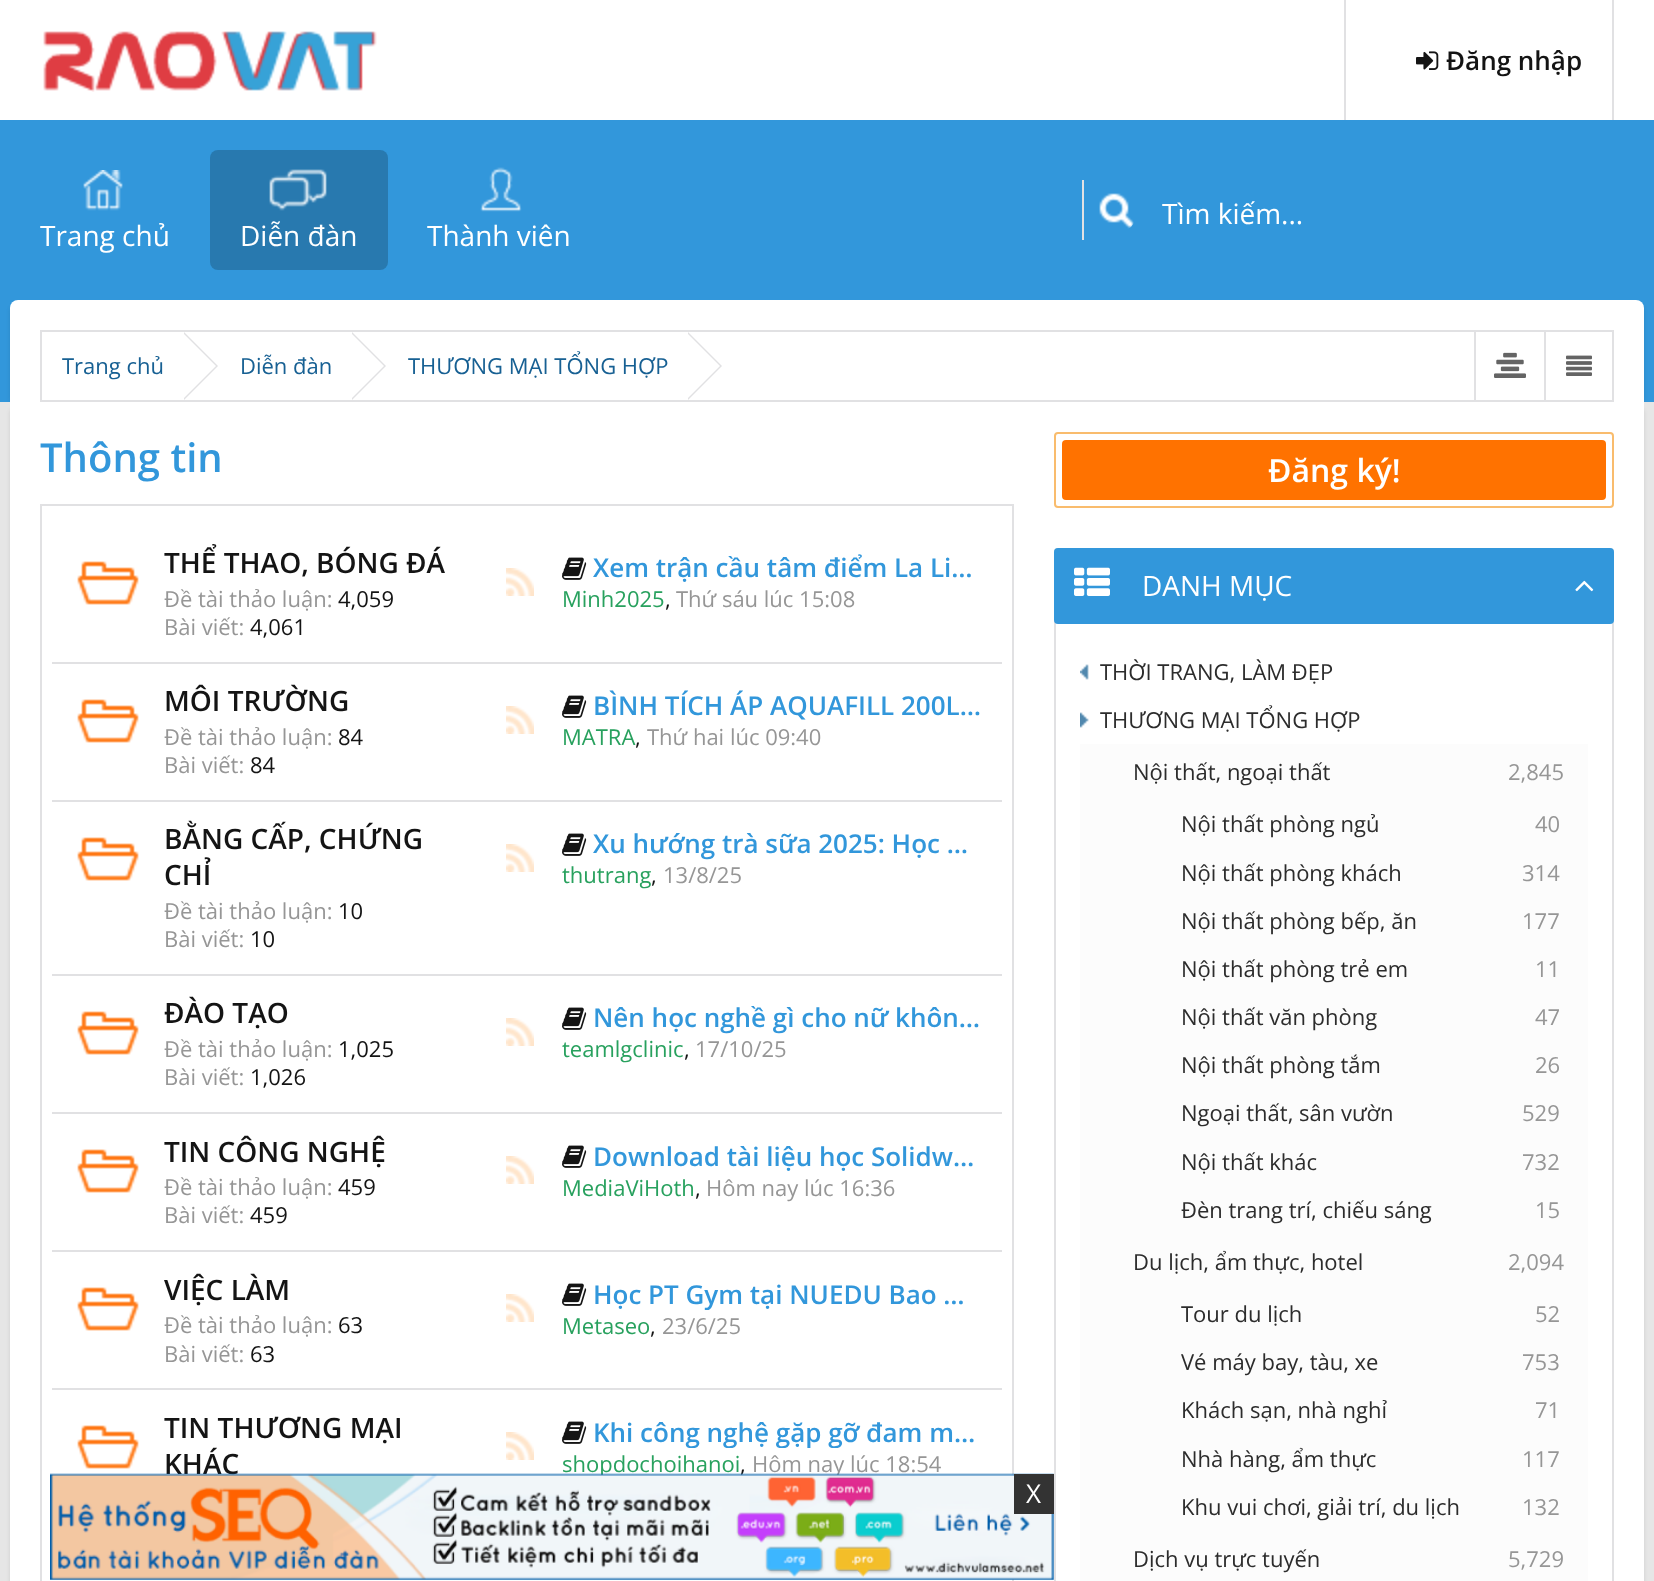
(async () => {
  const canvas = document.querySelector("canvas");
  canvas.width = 1654;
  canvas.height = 1581;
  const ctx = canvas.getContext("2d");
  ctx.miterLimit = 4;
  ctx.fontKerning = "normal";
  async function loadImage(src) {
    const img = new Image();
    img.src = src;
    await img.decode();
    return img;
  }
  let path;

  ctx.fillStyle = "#e6e6e6";
  ctx.fillRect(0, 0, 1654, 1581);
  ctx.fillStyle = "rgba(0, 0, 0, 0.1)";
  ctx.filter = "blur(2px)";
  ctx.beginPath();
  ctx.roundRect(10, 406, 1634, 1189, 8);
  ctx.fill();
  ctx.filter = "none";
  ctx.fillStyle = "#3297db";
  ctx.fillRect(0, 300, 1654, 102);
  ctx.fillStyle = "#ffffff";
  ctx.fillRect(10, 402, 1634, 1179);
  ctx.save();
  ctx.beginPath();
  ctx.rect(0, 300, 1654, 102);
  ctx.clip();
  ctx.fillStyle = "rgba(0, 0, 0, 0.1)";
  ctx.filter = "blur(2px)";
  ctx.beginPath();
  ctx.roundRect(10, 304, 1634, 102, 8);
  ctx.fill();
  ctx.filter = "none";
  ctx.restore();
  ctx.fillStyle = "#3297db";
  ctx.fillRect(0, 120, 1654, 180);
  ctx.fillStyle = "#ffffff";
  ctx.fillRect(0, 0, 1654, 120);
  ctx.drawImage(await loadImage("img/1.png"), 43, 31, 334, 61);
  ctx.fillStyle = "#e1e1e3";
  ctx.fillRect(1612, 0, 2, 120);
  ctx.fillRect(1344, 0, 2, 120);
  ctx.drawImage(await loadImage("img/2.png"), 1416, 51, 23, 19);
  ctx.fillRect(1082, 180, 2, 60);
  ctx.drawImage(await loadImage("img/3.png"), 1099, 193, 35, 36);
  ctx.drawImage(await loadImage("img/4.png"), 83, 170, 40, 41);
  ctx.fillStyle = "#2879af";
  ctx.beginPath();
  ctx.roundRect(210, 150, 178, 120, 8);
  ctx.fill();
  ctx.drawImage(await loadImage("img/5.png"), 269, 169, 58, 42);
  ctx.drawImage(await loadImage("img/6.png"), 480, 167, 42, 45);
  ctx.fillStyle = "#ffffff";
  ctx.beginPath();
  ctx.roundRect(10, 300, 1634, 102, [8, 8, 0, 0]);
  ctx.fill();
  ctx.strokeStyle = "#e1e1e3";
  ctx.lineWidth = 2;
  ctx.strokeRect(41, 331, 1504, 70);
  ctx.fillStyle = "#e1e1e3";
  path = new Path2D("M184 400V332L218 366Z");
  ctx.fill(path);
  ctx.fillStyle = "#ffffff";
  path = new Path2D("M182 400V332L216 366Z");
  ctx.fill(path);
  ctx.fillStyle = "#e1e1e3";
  path = new Path2D("M352 400V332L386 366Z");
  ctx.fill(path);
  ctx.fillStyle = "#ffffff";
  path = new Path2D("M350 400V332L384 366Z");
  ctx.fill(path);
  ctx.fillStyle = "#e1e1e3";
  path = new Path2D("M688 400V332L722 366Z");
  ctx.fill(path);
  ctx.fillStyle = "#ffffff";
  path = new Path2D("M686 400V332L720 366Z");
  ctx.fill(path);
  ctx.fillStyle = "#e1e1e3";
  ctx.fillRect(1474, 332, 2, 68);
  ctx.drawImage(await loadImage("img/7.png"), 1494, 352, 32, 26);
  ctx.strokeRect(1545, 331, 68, 70);
  ctx.drawImage(await loadImage("img/8.png"), 1566, 355, 26, 21);
  ctx.strokeRect(41, 505, 972, 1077);
  ctx.drawImage(await loadImage("img/9.png"), 77, 561, 62, 44);
  ctx.drawImage(await loadImage("img/10.png"), 506, 568, 28, 28);
  ctx.drawImage(await loadImage("img/11.png"), 562, 557, 25, 23);
  ctx.fillRect(52, 662, 950, 2);
  ctx.drawImage(await loadImage("img/9.png"), 77, 699, 62, 44);
  ctx.drawImage(await loadImage("img/10.png"), 506, 706, 28, 28);
  ctx.drawImage(await loadImage("img/11.png"), 562, 695, 25, 23);
  ctx.fillRect(52, 800, 950, 2);
  ctx.drawImage(await loadImage("img/9.png"), 77, 837, 62, 44);
  ctx.drawImage(await loadImage("img/10.png"), 506, 844, 28, 28);
  ctx.drawImage(await loadImage("img/11.png"), 562, 833, 25, 23);
  ctx.fillRect(52, 974, 950, 2);
  ctx.drawImage(await loadImage("img/9.png"), 77, 1011, 62, 44);
  ctx.drawImage(await loadImage("img/10.png"), 506, 1018, 28, 28);
  ctx.drawImage(await loadImage("img/11.png"), 562, 1007, 25, 23);
  ctx.fillRect(52, 1112, 950, 2);
  ctx.drawImage(await loadImage("img/9.png"), 77, 1149, 62, 44);
  ctx.drawImage(await loadImage("img/10.png"), 506, 1156, 28, 28);
  ctx.drawImage(await loadImage("img/11.png"), 562, 1145, 25, 23);
  ctx.fillRect(52, 1250, 950, 2);
  ctx.drawImage(await loadImage("img/9.png"), 77, 1287, 62, 44);
  ctx.drawImage(await loadImage("img/10.png"), 506, 1294, 28, 28);
  ctx.drawImage(await loadImage("img/11.png"), 562, 1283, 25, 23);
  ctx.fillRect(52, 1388, 950, 2);
  ctx.drawImage(await loadImage("img/9.png"), 77, 1425, 62, 44);
  ctx.drawImage(await loadImage("img/10.png"), 506, 1432, 28, 28);
  ctx.drawImage(await loadImage("img/11.png"), 562, 1421, 25, 23);
  ctx.beginPath();
  ctx.roundRect(1055, 433, 558, 74, 3);
  ctx.strokeStyle = "#f9bc6d";
  ctx.stroke();
  ctx.fillStyle = "#ff7200";
  ctx.beginPath();
  ctx.roundRect(1062, 440, 544, 60, 4);
  ctx.fill();
  ctx.beginPath();
  ctx.roundRect(1055, 549, 558, 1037, 3);
  ctx.strokeStyle = "#e1e1e3";
  ctx.stroke();
  ctx.fillStyle = "#3297db";
  ctx.beginPath();
  ctx.roundRect(1054, 548, 560, 76, 4);
  ctx.fill();
  ctx.drawImage(await loadImage("img/12.png"), 1074, 567, 36, 29);
  ctx.drawImage(await loadImage("img/13.png"), 1575, 580, 19, 12);
  ctx.drawImage(await loadImage("img/14.png"), 1080, 664, 9, 16);
  ctx.drawImage(await loadImage("img/15.png"), 1080, 712, 9, 16);
  ctx.fillStyle = "#fcfcfc";
  ctx.fillRect(1080, 744, 508, 837);
  ctx.font = "600 26px Open Sans";
  ctx.fillStyle = "#141414";
  ctx.fillText("Đăng nhập", 1446, 70);
  ctx.font = "28px Open Sans";
  ctx.fillStyle = "#ffffff";
  for (const [text, x, y] of [
    ["Tìm kiếm...", 1162, 224],
    ["Trang chủ", 40, 246],
    ["Diễn đàn", 240, 246],
    ["Thành viên", 427, 246],
  ]) {
    ctx.fillText(text, x, y);
  }
  ctx.font = "22px Open Sans";
  ctx.fillStyle = "#176093";
  for (const [text, x, y] of [
    ["Trang chủ", 62, 374],
    ["Diễn đàn", 240, 374],
    ["THƯƠNG MẠI TỔNG HỢP", 408, 374],
  ]) {
    ctx.fillText(text, x, y);
  }
  ctx.font = "600 40px Open Sans";
  ctx.fillStyle = "#3297db";
  ctx.fillText("Thông tin", 40, 472);
  ctx.font = "600 28px Open Sans";
  ctx.fillStyle = "#141414";
  ctx.fillText("THỂ THAO, BÓNG ĐÁ", 164, 573);
  ctx.font = "22px Open Sans";
  ctx.fillStyle = "#969696";
  ctx.fillText("Đề tài thảo luận:", 164, 607);
  ctx.fillStyle = "#141414";
  ctx.fillText("4,059", 338, 607);
  ctx.fillStyle = "#969696";
  ctx.fillText("Bài viết:", 164, 635);
  ctx.fillStyle = "#141414";
  ctx.fillText("4,061", 250, 635);
  ctx.font = "600 26px Open Sans";
  ctx.fillStyle = "#3297db";
  ctx.fillText("Xem trận cầu tâm điểm La Li…", 593, 577);
  ctx.font = "22px Open Sans";
  ctx.fillStyle = "#28a15e";
  ctx.fillText("Minh2025", 562, 607);
  ctx.fillStyle = "#141414";
  ctx.fillText(",", 665, 607);
  ctx.fillStyle = "#969696";
  ctx.fillText("Thứ sáu lúc 15:08", 676, 607);
  ctx.font = "600 28px Open Sans";
  ctx.fillStyle = "#141414";
  ctx.fillText("MÔI TRƯỜNG", 164, 711);
  ctx.font = "22px Open Sans";
  ctx.fillStyle = "#969696";
  ctx.fillText("Đề tài thảo luận:", 164, 745);
  ctx.fillStyle = "#141414";
  ctx.fillText("84", 338, 745);
  ctx.fillStyle = "#969696";
  ctx.fillText("Bài viết:", 164, 773);
  ctx.fillStyle = "#141414";
  ctx.fillText("84", 250, 773);
  ctx.font = "600 26px Open Sans";
  ctx.fillStyle = "#3297db";
  ctx.fillText("BÌNH TÍCH ÁP AQUAFILL 200L…", 593, 715);
  ctx.font = "22px Open Sans";
  ctx.fillStyle = "#28a15e";
  ctx.fillText("MATRA", 562, 745);
  ctx.fillStyle = "#141414";
  ctx.fillText(",", 635, 745);
  ctx.fillStyle = "#969696";
  ctx.fillText("Thứ hai lúc 09:40", 647, 745);
  ctx.font = "600 28px Open Sans";
  ctx.fillStyle = "#141414";
  ctx.fillText("BẰNG CẤP, CHỨNG", 164, 849);
  ctx.fillText("CHỈ", 164, 885);
  ctx.font = "22px Open Sans";
  ctx.fillStyle = "#969696";
  ctx.fillText("Đề tài thảo luận:", 164, 919);
  ctx.fillStyle = "#141414";
  ctx.fillText("10", 338, 919);
  ctx.fillStyle = "#969696";
  ctx.fillText("Bài viết:", 164, 947);
  ctx.fillStyle = "#141414";
  ctx.fillText("10", 250, 947);
  ctx.font = "600 26px Open Sans";
  ctx.fillStyle = "#3297db";
  ctx.fillText("Xu hướng trà sữa 2025: Học …", 593, 853);
  ctx.font = "22px Open Sans";
  ctx.fillStyle = "#28a15e";
  ctx.fillText("thutrang", 562, 883);
  ctx.fillStyle = "#141414";
  ctx.fillText(",", 651, 883);
  ctx.fillStyle = "#969696";
  ctx.fillText("13/8/25", 663, 883);
  ctx.font = "600 28px Open Sans";
  ctx.fillStyle = "#141414";
  ctx.fillText("ĐÀO TẠO", 164, 1023);
  ctx.font = "22px Open Sans";
  ctx.fillStyle = "#969696";
  ctx.fillText("Đề tài thảo luận:", 164, 1057);
  ctx.fillStyle = "#141414";
  ctx.fillText("1,025", 338, 1057);
  ctx.fillStyle = "#969696";
  ctx.fillText("Bài viết:", 164, 1085);
  ctx.fillStyle = "#141414";
  ctx.fillText("1,026", 250, 1085);
  ctx.font = "600 26px Open Sans";
  ctx.fillStyle = "#3297db";
  ctx.fillText("Nên học nghề gì cho nữ khôn…", 593, 1027);
  ctx.font = "22px Open Sans";
  ctx.fillStyle = "#28a15e";
  ctx.fillText("teamlgclinic", 562, 1057);
  ctx.fillStyle = "#141414";
  ctx.fillText(",", 684, 1057);
  ctx.fillStyle = "#969696";
  ctx.fillText("17/10/25", 695, 1057);
  ctx.font = "600 28px Open Sans";
  ctx.fillStyle = "#141414";
  ctx.fillText("TIN CÔNG NGHỆ", 164, 1162);
  ctx.font = "22px Open Sans";
  ctx.fillStyle = "#969696";
  ctx.fillText("Đề tài thảo luận:", 164, 1195);
  ctx.fillStyle = "#141414";
  ctx.fillText("459", 338, 1195);
  ctx.fillStyle = "#969696";
  ctx.fillText("Bài viết:", 164, 1223);
  ctx.fillStyle = "#141414";
  ctx.fillText("459", 250, 1223);
  ctx.font = "600 26px Open Sans";
  ctx.fillStyle = "#3297db";
  ctx.fillText("Download tài liệu học Solidw…", 593, 1166);
  ctx.font = "22px Open Sans";
  ctx.fillStyle = "#28a15e";
  ctx.fillText("MediaViHoth", 562, 1196);
  ctx.fillStyle = "#141414";
  ctx.fillText(",", 695, 1196);
  ctx.fillStyle = "#969696";
  ctx.fillText("Hôm nay lúc 16:36", 706, 1196);
  ctx.font = "600 28px Open Sans";
  ctx.fillStyle = "#141414";
  ctx.fillText("VIỆC LÀM", 164, 1300);
  ctx.font = "22px Open Sans";
  ctx.fillStyle = "#969696";
  ctx.fillText("Đề tài thảo luận:", 164, 1333);
  ctx.fillStyle = "#141414";
  ctx.fillText("63", 338, 1333);
  ctx.fillStyle = "#969696";
  ctx.fillText("Bài viết:", 164, 1362);
  ctx.fillStyle = "#141414";
  ctx.fillText("63", 250, 1362);
  ctx.save();
  ctx.beginPath();
  ctx.rect(562, 1278, 420, 32);
  ctx.clip();
  ctx.font = "600 26px Open Sans";
  ctx.fillStyle = "#3297db";
  ctx.fillText("Học PT Gym tại NUEDU Bao …", 593, 1304);
  ctx.restore();
  ctx.fillStyle = "#28a15e";
  ctx.fillText("Metaseo", 562, 1334);
  ctx.fillStyle = "#141414";
  ctx.fillText(",", 650, 1334);
  ctx.fillStyle = "#969696";
  ctx.fillText("23/6/25", 662, 1334);
  ctx.font = "600 28px Open Sans";
  ctx.fillStyle = "#141414";
  ctx.fillText("TIN THƯƠNG MẠI", 164, 1438);
  ctx.fillText("KHÁC", 164, 1474);
  ctx.save();
  ctx.beginPath();
  ctx.rect(562, 1416, 420, 32);
  ctx.clip();
  ctx.font = "600 26px Open Sans";
  ctx.fillStyle = "#3297db";
  ctx.fillText("Khi công nghệ gặp gỡ đam m…", 593, 1442);
  ctx.restore();
  ctx.font = "22px Open Sans";
  ctx.fillStyle = "#28a15e";
  ctx.fillText("shopdochoihanoi", 562, 1472);
  ctx.fillStyle = "#141414";
  ctx.fillText(",", 740, 1472);
  ctx.fillStyle = "#969696";
  ctx.fillText("Hôm nay lúc 18:54", 752, 1472);
  ctx.font = "600 32px Open Sans";
  ctx.fillStyle = "#ffffff";
  ctx.fillText("Đăng ký!", 1268, 482);
  ctx.font = "28px Open Sans";
  ctx.fillText("DANH MỤC", 1142, 596);
  ctx.font = "22px Open Sans";
  ctx.fillStyle = "#2c2c2c";
  for (const [text, x, y] of [
    ["THỜI TRANG, LÀM ĐẸP", 1100, 680],
    ["THƯƠNG MẠI TỔNG HỢP", 1100, 728],
    ["Nội thất, ngoại thất", 1133, 780],
  ]) {
    ctx.fillText(text, x, y);
  }
  ctx.fillStyle = "#969696";
  ctx.fillText("2,845", 1508, 780);
  ctx.fillStyle = "#2c2c2c";
  ctx.fillText("Nội thất phòng ngủ", 1181, 832);
  ctx.fillStyle = "#969696";
  ctx.fillText("40", 1535, 832);
  ctx.fillStyle = "#2c2c2c";
  ctx.fillText("Nội thất phòng khách", 1181, 881);
  ctx.fillStyle = "#969696";
  ctx.fillText("314", 1522, 881);
  ctx.fillStyle = "#2c2c2c";
  ctx.fillText("Nội thất phòng bếp, ăn", 1181, 929);
  ctx.fillStyle = "#969696";
  ctx.fillText("177", 1522, 929);
  ctx.fillStyle = "#2c2c2c";
  ctx.fillText("Nội thất phòng trẻ em", 1181, 977);
  ctx.fillStyle = "#969696";
  ctx.fillText("11", 1535, 977);
  ctx.fillStyle = "#2c2c2c";
  ctx.fillText("Nội thất văn phòng", 1181, 1025);
  ctx.fillStyle = "#969696";
  ctx.fillText("47", 1535, 1025);
  ctx.fillStyle = "#2c2c2c";
  ctx.fillText("Nội thất phòng tắm", 1181, 1073);
  ctx.fillStyle = "#969696";
  ctx.fillText("26", 1535, 1073);
  ctx.fillStyle = "#2c2c2c";
  ctx.fillText("Ngoại thất, sân vườn", 1181, 1121);
  ctx.fillStyle = "#969696";
  ctx.fillText("529", 1522, 1121);
  ctx.fillStyle = "#2c2c2c";
  ctx.fillText("Nội thất khác", 1181, 1170);
  ctx.fillStyle = "#969696";
  ctx.fillText("732", 1522, 1170);
  ctx.fillStyle = "#2c2c2c";
  ctx.fillText("Đèn trang trí, chiếu sáng", 1181, 1218);
  ctx.fillStyle = "#969696";
  ctx.fillText("15", 1535, 1218);
  ctx.fillStyle = "#2c2c2c";
  ctx.fillText("Du lịch, ẩm thực, hotel", 1133, 1270);
  ctx.fillStyle = "#969696";
  ctx.fillText("2,094", 1508, 1270);
  ctx.fillStyle = "#2c2c2c";
  ctx.fillText("Tour du lịch", 1181, 1322);
  ctx.fillStyle = "#969696";
  ctx.fillText("52", 1535, 1322);
  ctx.fillStyle = "#2c2c2c";
  ctx.fillText("Vé máy bay, tàu, xe", 1181, 1370);
  ctx.fillStyle = "#969696";
  ctx.fillText("753", 1522, 1370);
  ctx.fillStyle = "#2c2c2c";
  ctx.fillText("Khách sạn, nhà nghỉ", 1181, 1418);
  ctx.fillStyle = "#969696";
  ctx.fillText("71", 1535, 1418);
  ctx.fillStyle = "#2c2c2c";
  ctx.fillText("Nhà hàng, ẩm thực", 1181, 1467);
  ctx.fillStyle = "#969696";
  ctx.fillText("117", 1522, 1467);
  ctx.fillStyle = "#2c2c2c";
  ctx.fillText("Khu vui chơi, giải trí, du lịch", 1181, 1515);
  ctx.fillStyle = "#969696";
  ctx.fillText("132", 1522, 1515);
  ctx.fillStyle = "#2c2c2c";
  ctx.fillText("Dịch vụ trực tuyến", 1133, 1567);
  ctx.fillStyle = "#969696";
  ctx.fillText("5,729", 1508, 1567);
  ctx.drawImage(await loadImage("img/16.png"), 50, 1473, 1004, 107);
  ctx.fillStyle = "#333333";
  ctx.fillRect(1014, 1474, 40, 40);
  ctx.font = "26px Open Sans";
  ctx.fillStyle = "#ffffff";
  ctx.fillText("X", 1026, 1503);
})();
